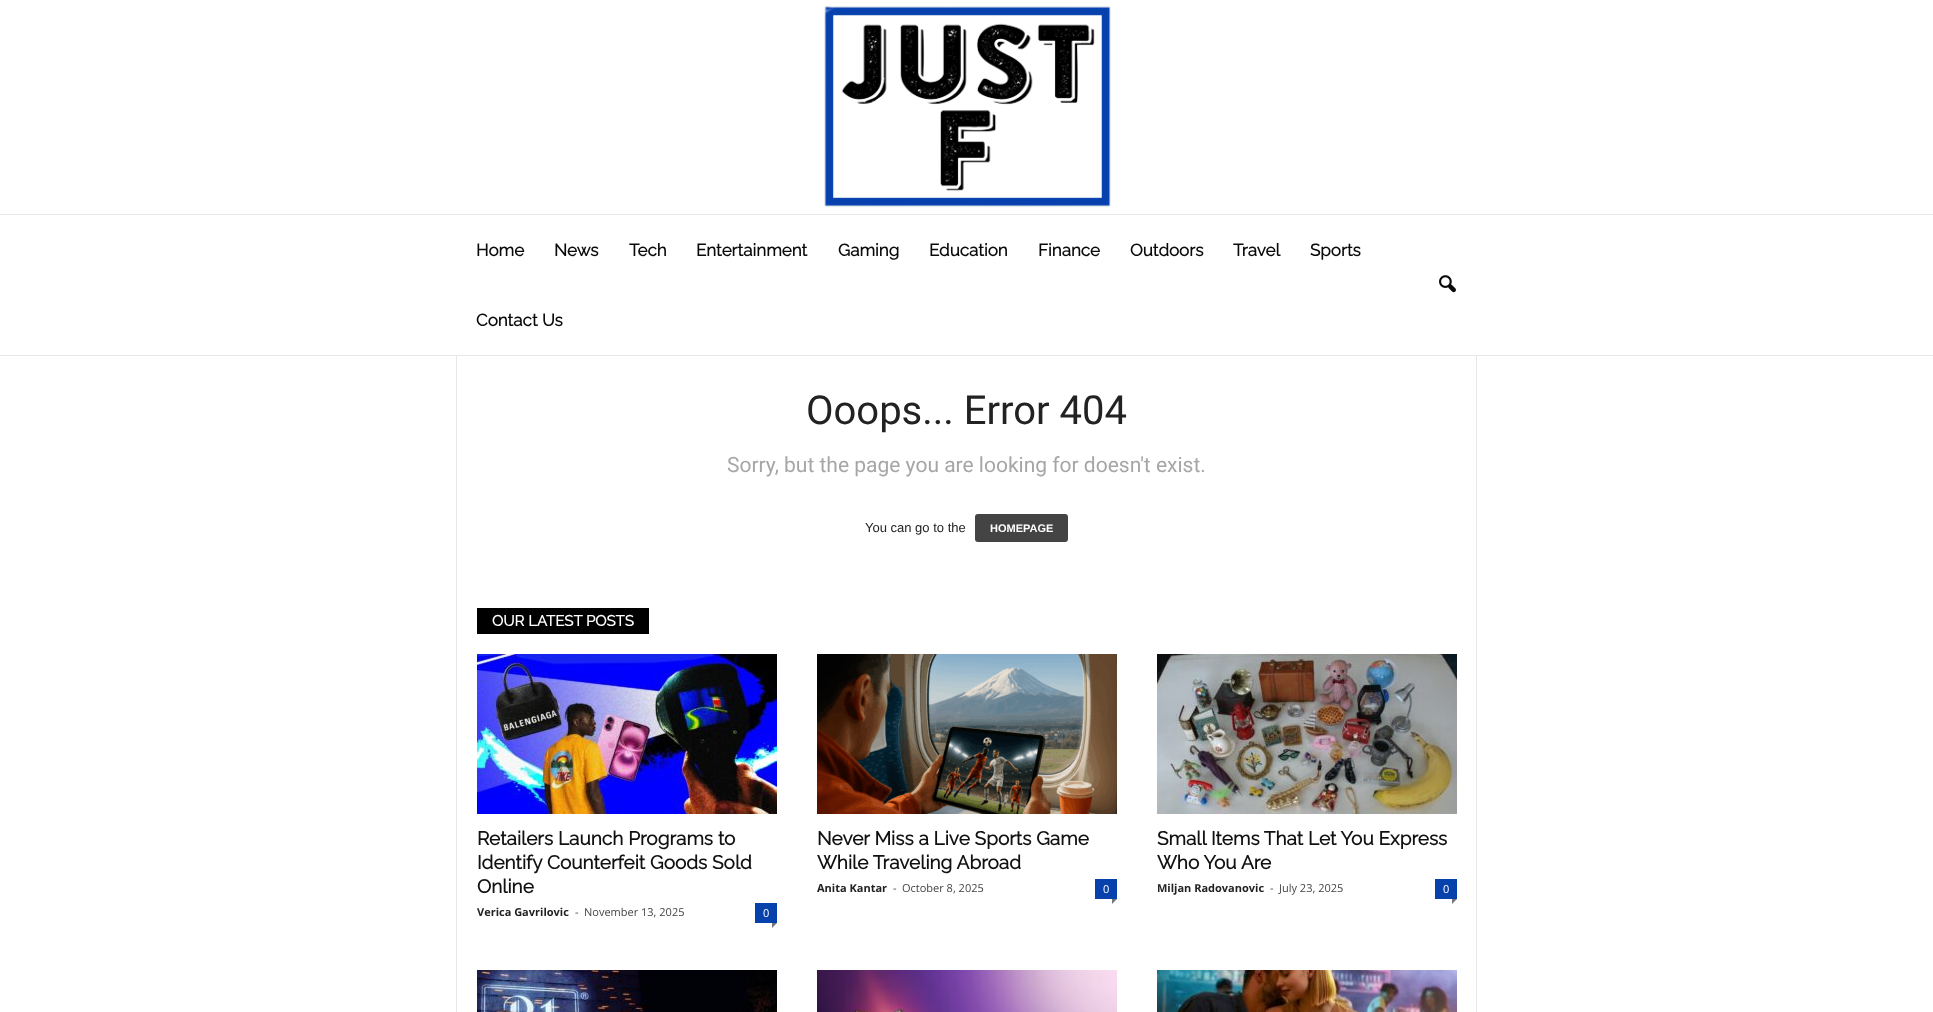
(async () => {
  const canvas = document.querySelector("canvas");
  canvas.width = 1933;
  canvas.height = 1012;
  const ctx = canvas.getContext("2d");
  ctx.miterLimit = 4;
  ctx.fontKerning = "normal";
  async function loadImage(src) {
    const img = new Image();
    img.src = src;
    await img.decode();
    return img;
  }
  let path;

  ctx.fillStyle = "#ffffff";
  ctx.fillRect(0, 0, 1933, 1012);
  ctx.drawImage(await loadImage("img/1.png"), 824, 6, 287, 201);
  ctx.fillStyle = "#e6e6e6";
  ctx.fillRect(0, 214, 1933, 1);
  ctx.fillRect(0, 355, 1933, 1);
  ctx.drawImage(await loadImage("img/2.png"), 1439, 275, 17, 18);
  ctx.fillRect(456, 356, 1, 656);
  ctx.fillStyle = "#444444";
  ctx.beginPath();
  ctx.roundRect(975, 514, 93, 28, 3);
  ctx.fill();
  ctx.fillStyle = "#000000";
  ctx.fillRect(477, 608, 172, 26);
  ctx.drawImage(await loadImage("img/3.png"), 477, 654, 300, 160);
  ctx.fillStyle = "#0741ac";
  ctx.fillRect(755, 903, 22, 20);
  ctx.fillStyle = "#777777";
  path = new Path2D("M772 923H777L772 928Z");
  ctx.fill(path);
  ctx.drawImage(await loadImage("img/4.png"), 817, 654, 300, 160);
  ctx.fillStyle = "#0741ac";
  ctx.fillRect(1095, 879, 22, 20);
  ctx.fillStyle = "#777777";
  path = new Path2D("M1112 899H1117L1112 904Z");
  ctx.fill(path);
  ctx.drawImage(await loadImage("img/5.png"), 1157, 654, 300, 160);
  ctx.fillStyle = "#0741ac";
  ctx.fillRect(1435, 879, 22, 20);
  ctx.fillStyle = "#777777";
  path = new Path2D("M1452 899H1457L1452 904Z");
  ctx.fill(path);
  ctx.drawImage(await loadImage("img/6.png"), 477, 970, 300, 42);
  ctx.drawImage(await loadImage("img/7.png"), 817, 970, 300, 42);
  ctx.drawImage(await loadImage("img/8.png"), 1157, 970, 300, 42);
  ctx.fillStyle = "#e6e6e6";
  ctx.fillRect(1476, 356, 1, 656);
  ctx.font = "bold 17px Raleway";
  ctx.fillStyle = "#0a0a0a";
  for (const [text, x, y] of [
    ["Home", 476, 256],
    ["News", 554, 256],
    ["Tech", 629, 256],
    ["Entertainment", 696, 256],
    ["Gaming", 838, 256],
    ["Education", 929, 256],
    ["Finance", 1038, 256],
    ["Outdoors", 1130, 256],
    ["Travel", 1233, 256],
    ["Sports", 1310, 256],
    ["Contact Us", 476, 326],
  ]) {
    ctx.fillText(text, x, y);
  }
  ctx.font = "40px Roboto";
  ctx.fillStyle = "#222222";
  ctx.fillText("Ooops... Error 404", 806, 424);
  ctx.font = "21px Roboto";
  ctx.fillStyle = "#a6a6a6";
  ctx.fillText("Sorry, but the page you are looking for doesn't exist.", 727, 472);
  ctx.font = "13px Liberation Sans";
  ctx.fillStyle = "#222222";
  ctx.fillText("You can go to the", 865, 532);
  ctx.font = "bold 11px Liberation Sans";
  ctx.fillStyle = "#ffffff";
  ctx.fillText("HOMEPAGE", 990, 532);
  ctx.font = "bold 15px Raleway";
  ctx.fillText("OUR LATEST POSTS", 492, 626);
  ctx.font = "bold 19px Raleway";
  ctx.fillStyle = "#111111";
  for (const [text, x, y] of [
    ["Retailers Launch Programs to", 477, 845],
    ["Identify Counterfeit Goods Sold", 477, 869],
    ["Online", 477, 893],
  ]) {
    ctx.fillText(text, x, y);
  }
  ctx.font = "bold 11px Open Sans";
  ctx.fillStyle = "#222222";
  ctx.fillText("Verica Gavrilovic", 477, 916);
  ctx.font = "11px Open Sans";
  ctx.fillStyle = "#444444";
  ctx.fillText("-", 575, 916);
  ctx.fillText("November 13, 2025", 584, 916);
  ctx.fillStyle = "#ffffff";
  ctx.fillText("0", 763, 917);
  ctx.font = "bold 19px Raleway";
  ctx.fillStyle = "#111111";
  ctx.fillText("Never Miss a Live Sports Game", 817, 845);
  ctx.fillText("While Traveling Abroad", 817, 869);
  ctx.font = "bold 11px Open Sans";
  ctx.fillStyle = "#222222";
  ctx.fillText("Anita Kantar", 817, 892);
  ctx.font = "11px Open Sans";
  ctx.fillStyle = "#444444";
  ctx.fillText("-", 893, 892);
  ctx.fillText("October 8, 2025", 902, 892);
  ctx.fillStyle = "#ffffff";
  ctx.fillText("0", 1103, 893);
  ctx.font = "bold 19px Raleway";
  ctx.fillStyle = "#111111";
  ctx.fillText("Small Items That Let You Express", 1157, 845);
  ctx.fillText("Who You Are", 1157, 869);
  ctx.font = "bold 11px Open Sans";
  ctx.fillStyle = "#222222";
  ctx.fillText("Miljan Radovanovic", 1157, 892);
  ctx.font = "11px Open Sans";
  ctx.fillStyle = "#444444";
  ctx.fillText("-", 1270, 892);
  ctx.fillText("July 23, 2025", 1279, 892);
  ctx.fillStyle = "#ffffff";
  ctx.fillText("0", 1443, 893);
})();
